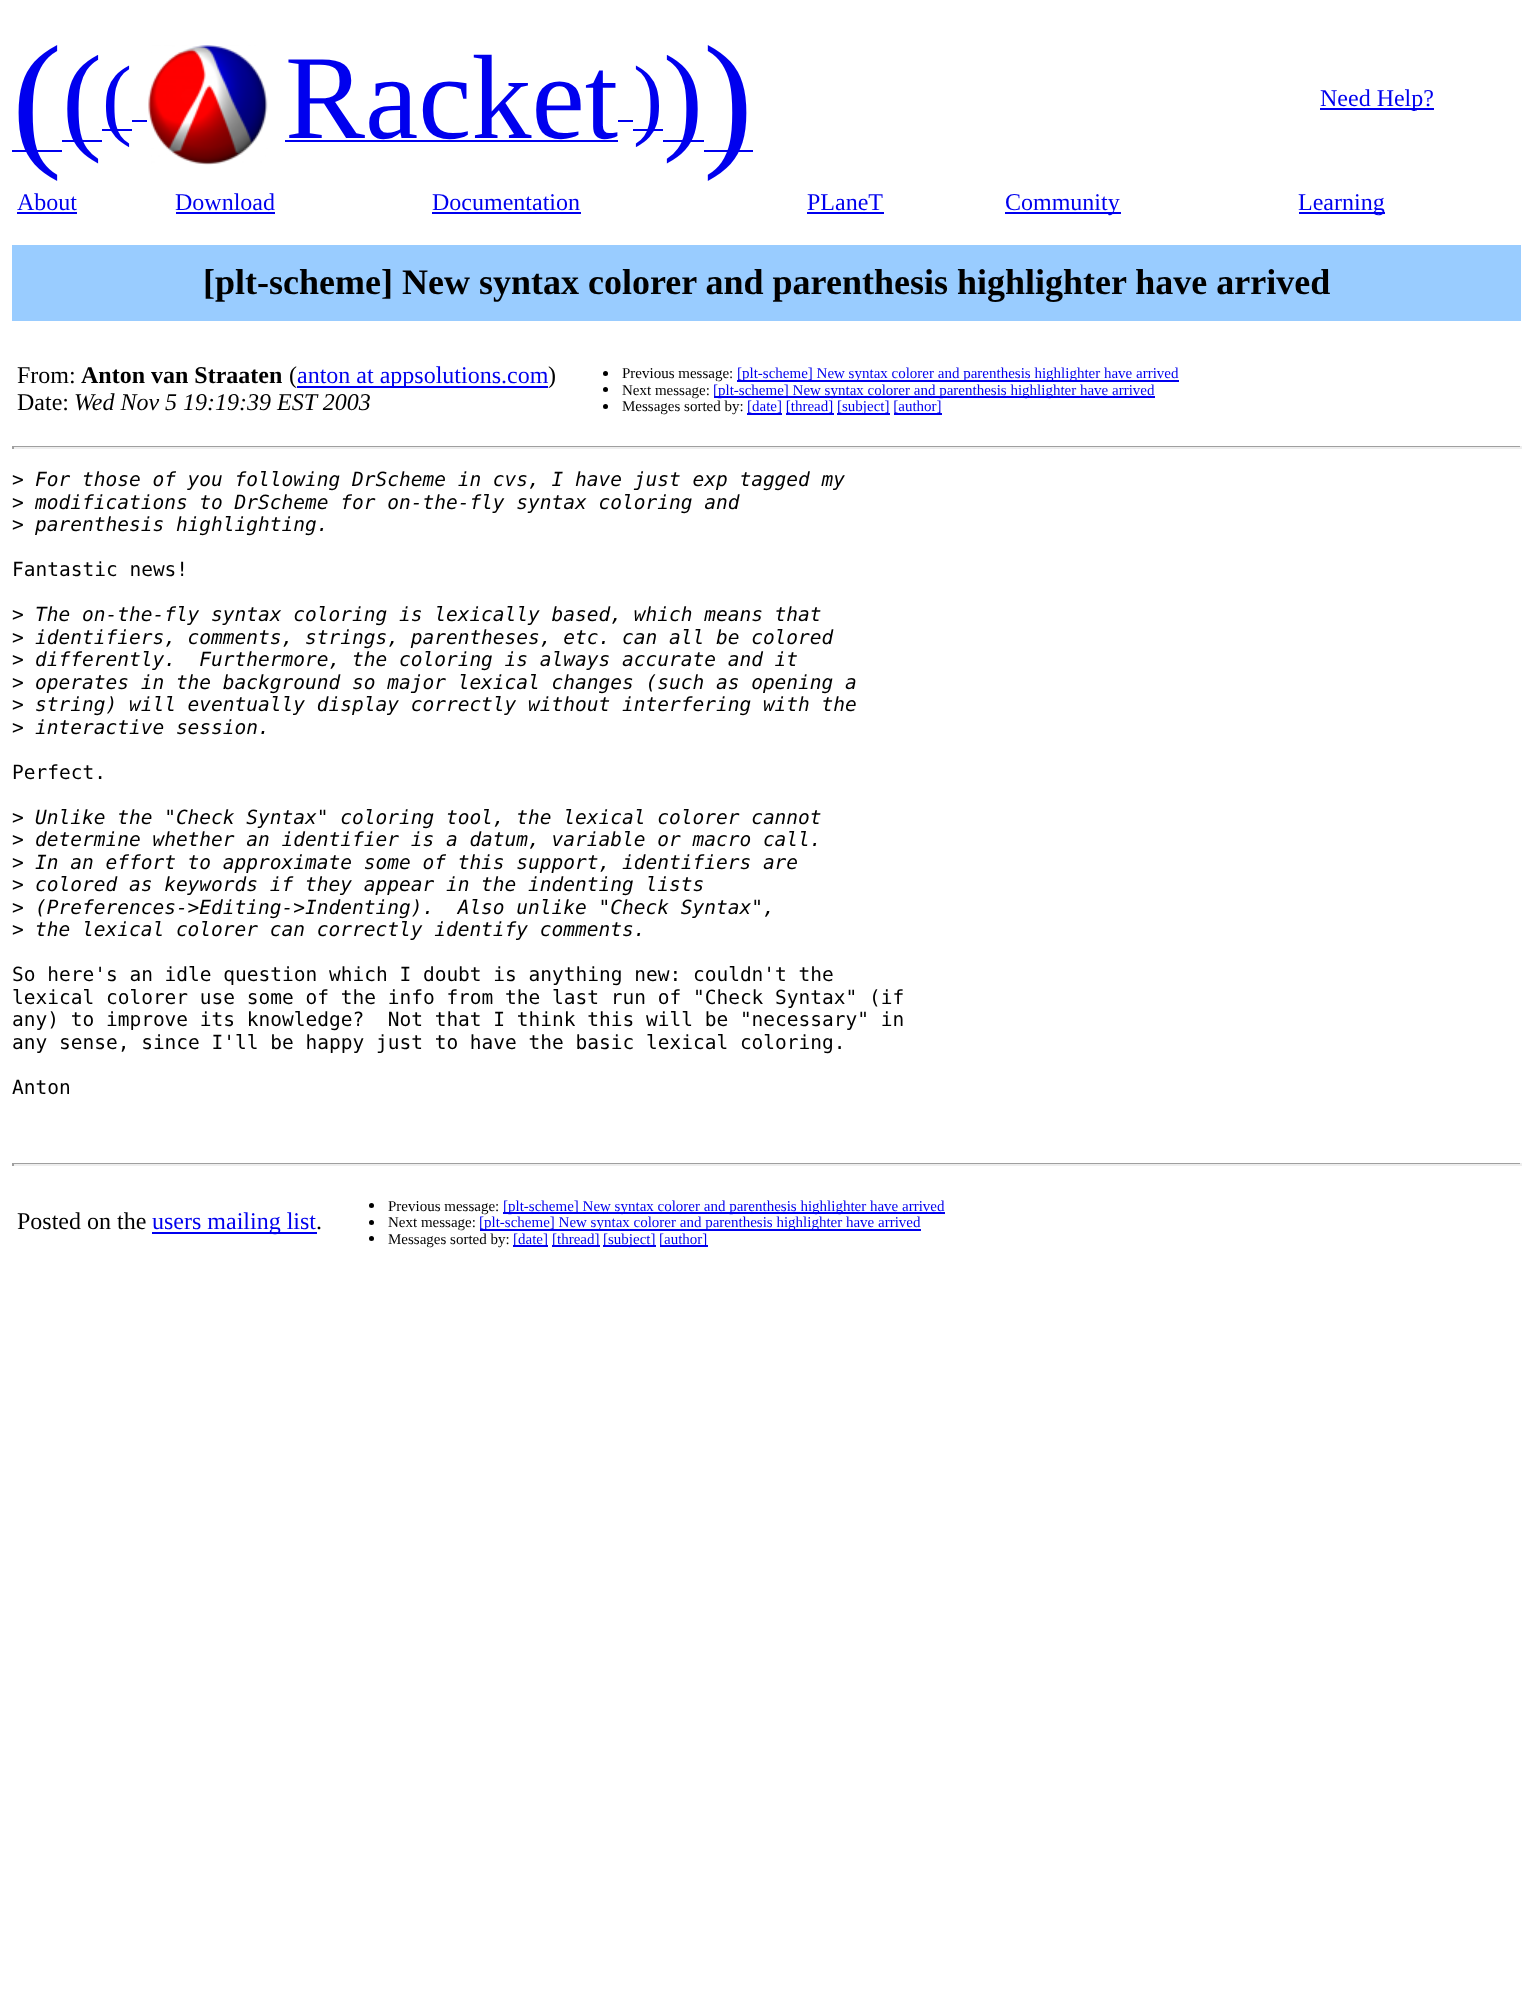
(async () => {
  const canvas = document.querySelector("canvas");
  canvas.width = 1532;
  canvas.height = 2014;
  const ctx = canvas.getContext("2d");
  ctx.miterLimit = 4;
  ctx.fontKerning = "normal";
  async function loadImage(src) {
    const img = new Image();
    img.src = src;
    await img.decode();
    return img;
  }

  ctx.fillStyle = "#ffffff";
  ctx.fillRect(0, 0, 1532, 2014);
  for (const [x, y, w, h, color] of [
    [12, 150, 50, 2, "#0000ee"],
    [62, 140, 40, 2, "#0000ee"],
    [102, 129, 30, 2, "#0000ee"],
    [132, 120, 15, 2, "#0000ee"],
  ]) {
    ctx.fillStyle = color;
    ctx.fillRect(x, y, w, h);
  }
  ctx.drawImage(await loadImage("img/1.png"), 148, 45, 120, 120);
  for (const [x, y, w, h, color] of [
    [285, 140, 333, 2, "#0000ee"],
    [618, 120, 15, 2, "#0000ee"],
    [633, 129, 30, 2, "#0000ee"],
    [663, 140, 41, 2, "#0000ee"],
    [704, 150, 49, 2, "#0000ee"],
    [1320, 108, 114, 2, "#0000ee"],
    [17, 212, 60, 2, "#0000ee"],
    [176, 212, 99, 2, "#0000ee"],
    [432, 212, 149, 2, "#0000ee"],
    [807, 212, 77, 2, "#0000ee"],
    [1005, 212, 116, 2, "#0000ee"],
    [1299, 212, 86, 2, "#0000ee"],
    [12, 245, 1509, 76, "#99ccff"],
    [297, 386, 251, 2, "#0000ee"],
  ]) {
    ctx.fillStyle = color;
    ctx.fillRect(x, y, w, h);
  }
  ctx.fillStyle = "#000000";
  ctx.beginPath();
  ctx.arc(605.5, 373.5, 2.5, 0, Math.PI * 2);
  ctx.fill();
  ctx.fillStyle = "#0000ee";
  ctx.fillRect(737, 380, 442, 2);
  ctx.fillStyle = "#000000";
  ctx.beginPath();
  ctx.arc(605.5, 389.5, 2.5, 0, Math.PI * 2);
  ctx.fill();
  ctx.fillStyle = "#0000ee";
  ctx.fillRect(714, 396, 441, 2);
  ctx.fillStyle = "#000000";
  ctx.beginPath();
  ctx.arc(605.5, 406.5, 2.5, 0, Math.PI * 2);
  ctx.fill();
  for (const [x, y, w, h, color] of [
    [747, 413, 35, 2, "#0000ee"],
    [837, 413, 53, 2, "#0000ee"],
    [786, 413, 48, 2, "#0000ee"],
    [894, 413, 48, 2, "#0000ee"],
    [12, 446, 1509, 1, "#9f9f9f"],
    [1520, 446, 2, 3, "#eeeeee"],
    [12, 447, 1509, 2, "#eeeeee"],
    [12, 446, 2, 3, "#9f9f9f"],
    [12, 1163, 1509, 1, "#9f9f9f"],
    [1520, 1163, 2, 3, "#eeeeee"],
    [12, 1164, 1509, 2, "#eeeeee"],
    [12, 1163, 2, 3, "#9f9f9f"],
    [152, 1232, 165, 2, "#0000ee"],
  ]) {
    ctx.fillStyle = color;
    ctx.fillRect(x, y, w, h);
  }
  ctx.fillStyle = "#000000";
  ctx.beginPath();
  ctx.arc(371.5, 1205.5, 2.5, 0, Math.PI * 2);
  ctx.fill();
  ctx.fillStyle = "#0000ee";
  ctx.fillRect(503, 1212, 442, 2);
  ctx.fillStyle = "#000000";
  ctx.beginPath();
  ctx.arc(371.5, 1222.5, 2.5, 0, Math.PI * 2);
  ctx.fill();
  ctx.fillStyle = "#0000ee";
  ctx.fillRect(480, 1229, 441, 2);
  ctx.fillStyle = "#000000";
  ctx.beginPath();
  ctx.arc(371.5, 1238.5, 2.5, 0, Math.PI * 2);
  ctx.fill();
  for (const [x, y, w, h, color] of [
    [513, 1245, 35, 2, "#0000ee"],
    [552, 1245, 48, 2, "#0000ee"],
    [603, 1245, 53, 2, "#0000ee"],
    [660, 1245, 48, 2, "#0000ee"],
  ]) {
    ctx.fillStyle = color;
    ctx.fillRect(x, y, w, h);
  }
  ctx.font = "150px Liberation Serif";
  ctx.fillText("(", 12, 149);
  ctx.font = "120px Liberation Serif";
  ctx.fillText("(", 62, 138);
  ctx.font = "90px Liberation Serif";
  ctx.fillText("(", 102, 128);
  ctx.font = "120px Liberation Serif";
  ctx.fillText("Racket", 285, 138);
  ctx.font = "90px Liberation Serif";
  ctx.fillText(")", 633, 128);
  ctx.font = "120px Liberation Serif";
  ctx.fillText(")", 663, 138);
  ctx.font = "150px Liberation Serif";
  ctx.fillText(")", 703, 149);
  ctx.font = "24px Liberation Serif";
  for (const [text, x, y] of [
    ["Need Help?", 1320, 106],
    ["About", 17, 210],
    ["Download", 175, 210],
    ["Documentation", 432, 210],
    ["PLaneT", 807, 210],
    ["Community", 1005, 210],
    ["Learning", 1298, 210],
  ]) {
    ctx.fillText(text, x, y);
  }
  ctx.font = "bold 36px Liberation Serif";
  ctx.fillStyle = "#000000";
  ctx.fillText("[plt-scheme] New syntax colorer and parenthesis highlighter have arrived", 203, 294);
  ctx.font = "24px Liberation Serif";
  ctx.fillText("From:", 17, 383);
  ctx.font = "bold 24px Liberation Serif";
  ctx.fillText("Anton van Straaten", 81, 383);
  ctx.font = "24px Liberation Serif";
  ctx.fillText("(", 289, 383);
  ctx.fillStyle = "#0000ee";
  ctx.fillText("anton at appsolutions.com", 297, 383);
  ctx.fillStyle = "#000000";
  ctx.fillText(")", 548, 383);
  ctx.fillText("Date:", 17, 410);
  ctx.font = "italic 24px Liberation Serif";
  ctx.fillText("Wed Nov 5 19:19:39 EST 2003", 74, 410);
  ctx.font = "15px Liberation Serif";
  ctx.fillText("Previous message:", 622, 378);
  ctx.fillStyle = "#0000ee";
  ctx.fillText("[plt-scheme] New syntax colorer and parenthesis highlighter have arrived", 737, 378);
  ctx.fillStyle = "#000000";
  ctx.fillText("Next message:", 622, 395);
  ctx.fillStyle = "#0000ee";
  ctx.fillText("[plt-scheme] New syntax colorer and parenthesis highlighter have arrived", 713, 395);
  ctx.fillStyle = "#000000";
  ctx.fillText("Messages sorted by:", 622, 411);
  ctx.fillStyle = "#0000ee";
  ctx.fillText("[date] [thread]", 747, 411);
  ctx.fillText("[subject] [author]", 837, 411);
  ctx.font = "19.5px DejaVu Sans Mono";
  ctx.fillStyle = "#000000";
  ctx.fillText(">", 12, 486);
  ctx.font = "italic 19.5px DejaVu Sans Mono";
  ctx.fillText("For those of you following DrScheme in cvs, I have just exp tagged my", 35, 486);
  ctx.font = "19.5px DejaVu Sans Mono";
  ctx.fillText(">", 12, 509);
  ctx.font = "italic 19.5px DejaVu Sans Mono";
  ctx.fillText("modifications to DrScheme for on-the-fly syntax coloring and", 35, 509);
  ctx.font = "19.5px DejaVu Sans Mono";
  ctx.fillText(">", 12, 531);
  ctx.font = "italic 19.5px DejaVu Sans Mono";
  ctx.fillText("parenthesis highlighting.", 35, 531);
  ctx.font = "19.5px DejaVu Sans Mono";
  ctx.fillText("Fantastic news!", 12, 576);
  ctx.fillText(">", 12, 621);
  ctx.font = "italic 19.5px DejaVu Sans Mono";
  ctx.fillText("The on-the-fly syntax coloring is lexically based, which means that", 35, 621);
  ctx.font = "19.5px DejaVu Sans Mono";
  ctx.fillText(">", 12, 644);
  ctx.font = "italic 19.5px DejaVu Sans Mono";
  ctx.fillText("identifiers, comments, strings, parentheses, etc. can all be colored", 35, 644);
  ctx.font = "19.5px DejaVu Sans Mono";
  ctx.fillText(">", 12, 666);
  ctx.font = "italic 19.5px DejaVu Sans Mono";
  ctx.fillText("differently.  Furthermore, the coloring is always accurate and it", 35, 666);
  ctx.font = "19.5px DejaVu Sans Mono";
  ctx.fillText(">", 12, 689);
  ctx.font = "italic 19.5px DejaVu Sans Mono";
  ctx.fillText("operates in the background so major lexical changes (such as opening a", 35, 689);
  ctx.font = "19.5px DejaVu Sans Mono";
  ctx.fillText(">", 12, 711);
  ctx.font = "italic 19.5px DejaVu Sans Mono";
  ctx.fillText("string) will eventually display correctly without interfering with the", 35, 711);
  ctx.font = "19.5px DejaVu Sans Mono";
  ctx.fillText(">", 12, 734);
  ctx.font = "italic 19.5px DejaVu Sans Mono";
  ctx.fillText("interactive session.", 35, 734);
  ctx.font = "19.5px DejaVu Sans Mono";
  ctx.fillText("Perfect.", 12, 779);
  ctx.fillText(">", 12, 824);
  ctx.font = "italic 19.5px DejaVu Sans Mono";
  ctx.fillText("Unlike the \"Check Syntax\" coloring tool, the lexical colorer cannot", 35, 824);
  ctx.font = "19.5px DejaVu Sans Mono";
  ctx.fillText(">", 12, 846);
  ctx.font = "italic 19.5px DejaVu Sans Mono";
  ctx.fillText("determine whether an identifier is a datum, variable or macro call.", 35, 846);
  ctx.font = "19.5px DejaVu Sans Mono";
  ctx.fillText(">", 12, 869);
  ctx.font = "italic 19.5px DejaVu Sans Mono";
  ctx.fillText("In an effort to approximate some of this support, identifiers are", 35, 869);
  ctx.font = "19.5px DejaVu Sans Mono";
  ctx.fillText(">", 12, 891);
  ctx.font = "italic 19.5px DejaVu Sans Mono";
  ctx.fillText("colored as keywords if they appear in the indenting lists", 35, 891);
  ctx.font = "19.5px DejaVu Sans Mono";
  ctx.fillText(">", 12, 914);
  ctx.font = "italic 19.5px DejaVu Sans Mono";
  ctx.fillText("(Preferences->Editing->Indenting).  Also unlike \"Check Syntax\",", 35, 914);
  ctx.font = "19.5px DejaVu Sans Mono";
  ctx.fillText(">", 12, 936);
  ctx.font = "italic 19.5px DejaVu Sans Mono";
  ctx.fillText("the lexical colorer can correctly identify comments.", 35, 936);
  ctx.font = "19.5px DejaVu Sans Mono";
  for (const [text, x, y] of [
    ["So here's an idle question which I doubt is anything new: couldn't the", 12, 981],
    ["lexical colorer use some of the info from the last run of \"Check Syntax\" (if", 12, 1004],
    ["any) to improve its knowledge?  Not that I think this will be \"necessary\" in", 12, 1026],
    ["any sense, since I'll be happy just to have the basic lexical coloring.", 12, 1049],
    ["Anton", 12, 1094],
  ]) {
    ctx.fillText(text, x, y);
  }
  ctx.font = "24px Liberation Serif";
  ctx.fillText("Posted on the", 17, 1229);
  ctx.fillStyle = "#0000ee";
  ctx.fillText("users mailing list", 152, 1229);
  ctx.fillStyle = "#000000";
  ctx.fillText(".", 316, 1229);
  ctx.font = "15px Liberation Serif";
  ctx.fillText("Previous message:", 388, 1211);
  ctx.fillStyle = "#0000ee";
  ctx.fillText("[plt-scheme] New syntax colorer and parenthesis highlighter have arrived", 503, 1211);
  ctx.fillStyle = "#000000";
  ctx.fillText("Next message:", 388, 1227);
  ctx.fillStyle = "#0000ee";
  ctx.fillText("[plt-scheme] New syntax colorer and parenthesis highlighter have arrived", 479, 1227);
  ctx.fillStyle = "#000000";
  ctx.fillText("Messages sorted by:", 388, 1244);
  ctx.fillStyle = "#0000ee";
  for (const [text, x, y] of [
    ["[date]", 513, 1244],
    ["[thread]", 552, 1244],
    ["[subject]", 603, 1244],
    ["[author]", 659, 1244],
  ]) {
    ctx.fillText(text, x, y);
  }
})();
